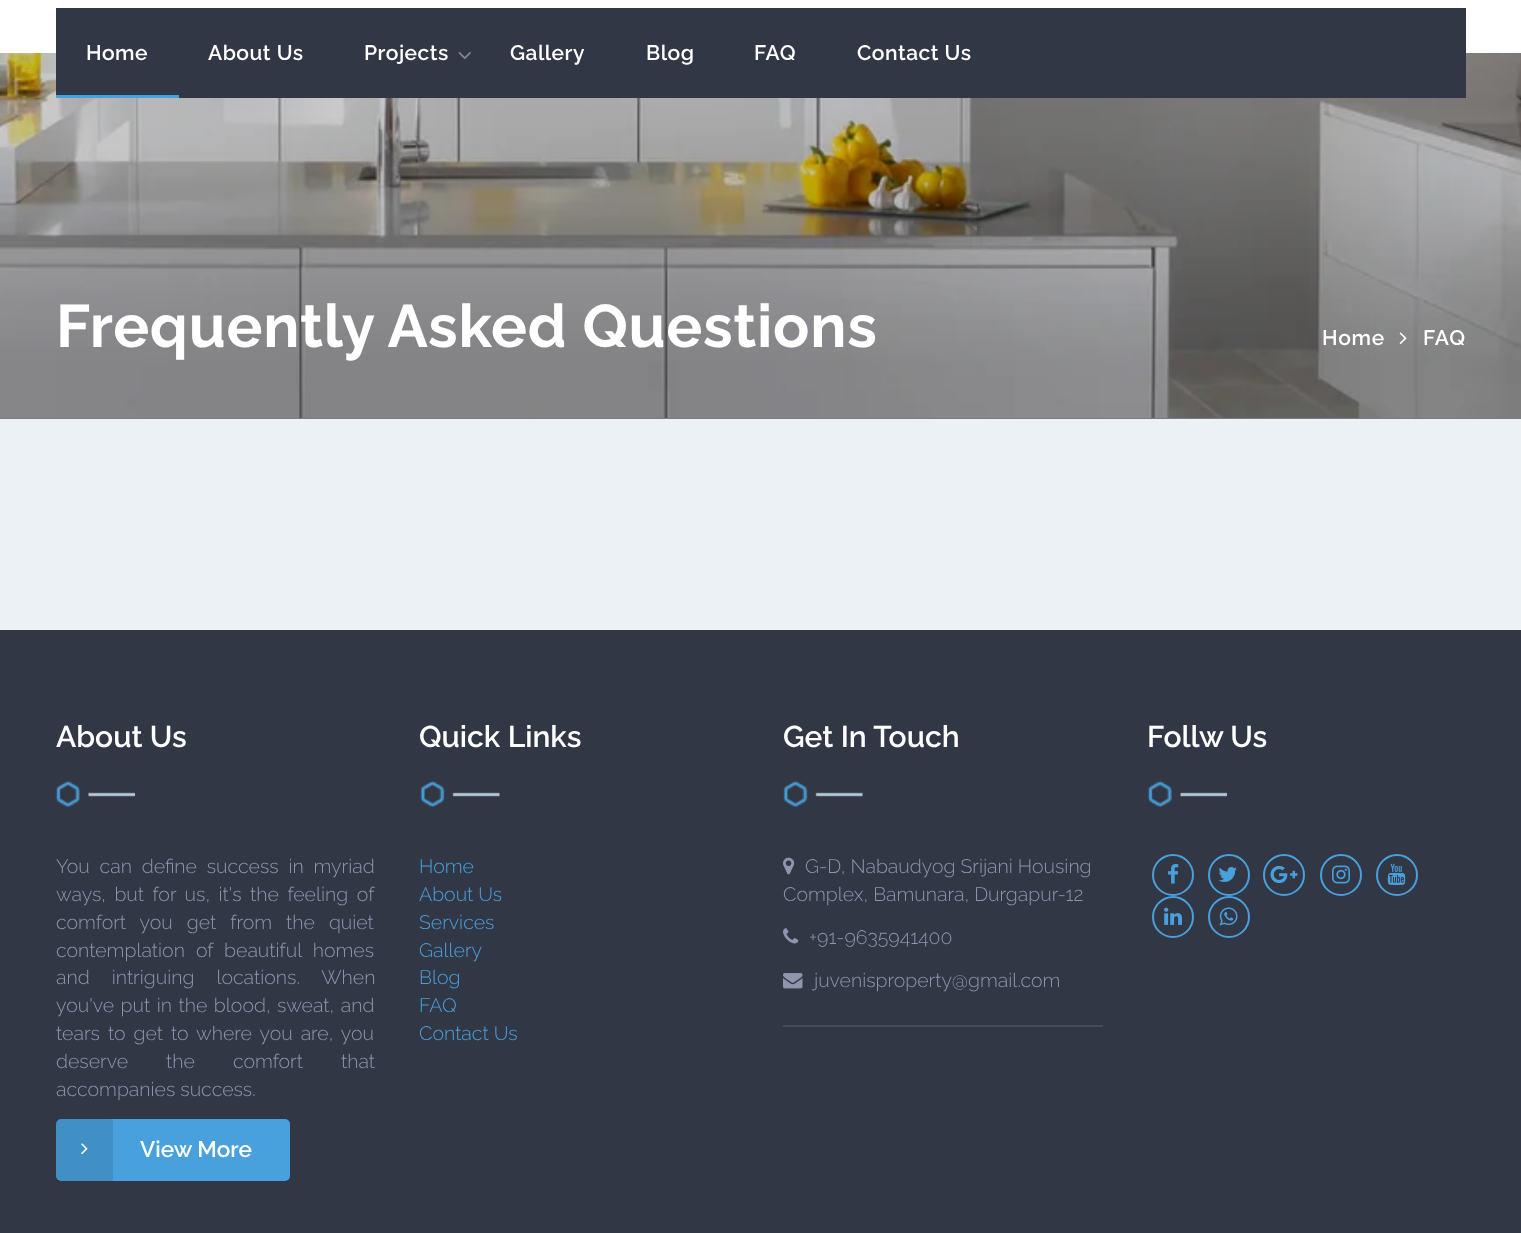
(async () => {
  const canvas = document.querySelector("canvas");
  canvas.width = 1521;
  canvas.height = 1233;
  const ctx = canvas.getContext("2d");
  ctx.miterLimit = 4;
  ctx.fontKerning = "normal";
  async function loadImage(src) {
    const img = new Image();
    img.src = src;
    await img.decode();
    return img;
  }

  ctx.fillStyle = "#ebf1f5";
  ctx.fillRect(0, 0, 1521, 1233);
  ctx.fillStyle = "#ffffff";
  ctx.fillRect(0, 0, 1521, 53);
  ctx.drawImage(await loadImage("img/2.png"), 0, 53, 1521, 365);
  ctx.fillStyle = "#323746";
  ctx.fillRect(56, 8, 1410, 90);
  ctx.fillStyle = "#48a0dc";
  ctx.fillRect(56, 95, 123, 3);
  ctx.drawImage(await loadImage("img/1.png"), 458, 52, 13, 8);
  ctx.fillStyle = "#787c8a";
  ctx.fillRect(0, 418, 1521, 1);
  ctx.drawImage(await loadImage("img/3.png"), 1399, 332, 8, 12);
  ctx.fillStyle = "#323746";
  ctx.fillRect(0, 630, 1521, 603);
  ctx.drawImage(await loadImage("img/4.png"), 55, 781, 80, 26);
  ctx.fillStyle = "#48a0dc";
  ctx.beginPath();
  ctx.roundRect(56, 1119, 234, 62, 5);
  ctx.fill();
  ctx.fillStyle = "rgba(0, 0, 0, 0.1)";
  ctx.beginPath();
  ctx.roundRect(56, 1119, 57, 62, 3);
  ctx.fill();
  ctx.drawImage(await loadImage("img/5.png"), 81, 1143, 7, 12);
  ctx.drawImage(await loadImage("img/6.png"), 420, 781, 80, 26);
  ctx.drawImage(await loadImage("img/7.png"), 783, 781, 80, 26);
  ctx.drawImage(await loadImage("img/8.png"), 783, 857, 12, 18);
  ctx.drawImage(await loadImage("img/9.png"), 783, 928, 16, 16);
  ctx.drawImage(await loadImage("img/10.png"), 783, 973, 20, 16);
  ctx.fillStyle = "#474b59";
  ctx.fillRect(783, 1025, 320, 2);
  ctx.drawImage(await loadImage("img/11.png"), 1147, 781, 80, 26);
  ctx.beginPath();
  ctx.arc(1173, 875, 20, 0, Math.PI * 2);
  ctx.strokeStyle = "#48a0dc";
  ctx.lineWidth = 2;
  ctx.stroke();
  ctx.drawImage(await loadImage("img/12.png"), 1168, 864, 11, 20);
  ctx.beginPath();
  ctx.arc(1229, 875, 20, 0, Math.PI * 2);
  ctx.stroke();
  ctx.drawImage(await loadImage("img/13.png"), 1218, 867, 19, 15);
  ctx.beginPath();
  ctx.arc(1284, 875, 20, 0, Math.PI * 2);
  ctx.stroke();
  ctx.drawImage(await loadImage("img/14.png"), 1270, 865, 28, 19);
  ctx.beginPath();
  ctx.arc(1341, 875, 20, 0, Math.PI * 2);
  ctx.stroke();
  ctx.drawImage(await loadImage("img/15.png"), 1332, 865, 18, 19);
  ctx.beginPath();
  ctx.arc(1397, 875, 20, 0, Math.PI * 2);
  ctx.stroke();
  ctx.drawImage(await loadImage("img/16.png"), 1387, 864, 19, 21);
  ctx.beginPath();
  ctx.arc(1173, 917, 20, 0, Math.PI * 2);
  ctx.stroke();
  ctx.drawImage(await loadImage("img/17.png"), 1164, 907, 18, 18);
  ctx.beginPath();
  ctx.arc(1229, 917, 20, 0, Math.PI * 2);
  ctx.stroke();
  ctx.drawImage(await loadImage("img/18.png"), 1219, 907, 19, 19);
  ctx.letterSpacing = "0.5px";
  ctx.font = "600 21px Raleway";
  ctx.fillStyle = "#ffffff";
  for (const [text, x, y] of [
    ["Home", 86, 60],
    ["About Us", 208, 60],
    ["Projects", 364, 60],
    ["Gallery", 510, 60],
    ["Blog", 646, 60],
    ["FAQ", 754, 60],
    ["Contact Us", 857, 60],
  ]) {
    ctx.fillText(text, x, y);
  }
  ctx.letterSpacing = "0.75px";
  ctx.font = "bold 60px Raleway";
  ctx.fillText("Frequently Asked Questions", 56, 347);
  ctx.font = "600 21px Raleway";
  ctx.fillText("Home", 1322, 345);
  ctx.fillText("FAQ", 1423, 345);
  ctx.letterSpacing = "0px";
  ctx.font = "600 30px Raleway";
  ctx.fillText("About Us", 56, 747);
  ctx.wordSpacing = "4.75px";
  ctx.font = "300 19.5px Raleway";
  ctx.fillStyle = "#8e95ac";
  ctx.fillText("You can define success in myriad", 56, 873);
  ctx.wordSpacing = "3.5px";
  ctx.fillText("ways, but for us, it's the feeling of", 56, 901);
  ctx.wordSpacing = "9px";
  ctx.fillText("comfort you get from the quiet", 56, 929);
  ctx.wordSpacing = "6px";
  ctx.fillText("contemplation of beautiful homes", 56, 957);
  ctx.wordSpacing = "17px";
  ctx.fillText("and intriguing locations. When", 56, 984);
  ctx.wordSpacing = "1.5px";
  ctx.fillText("you've put in the blood, sweat, and", 56, 1012);
  ctx.wordSpacing = "3px";
  ctx.fillText("tears to get to where you are, you", 56, 1040);
  ctx.wordSpacing = "33px";
  ctx.fillText("deserve the comfort that", 56, 1068);
  ctx.wordSpacing = "0px";
  ctx.fillText("accompanies success.", 56, 1096);
  ctx.font = "600 22.5px Raleway";
  ctx.fillStyle = "#ffffff";
  ctx.fillText("View More", 140, 1157);
  ctx.font = "600 30px Raleway";
  ctx.fillText("Quick Links", 419, 747);
  ctx.font = "300 19.5px Raleway";
  ctx.fillStyle = "#48a0dc";
  for (const [text, x, y] of [
    ["Home", 419, 873],
    ["About Us", 419, 901],
    ["Services", 419, 929],
    ["Gallery", 419, 957],
    ["Blog", 419, 984],
    ["FAQ", 419, 1012],
    ["Contact Us", 419, 1040],
  ]) {
    ctx.fillText(text, x, y);
  }
  ctx.font = "600 30px Raleway";
  ctx.fillStyle = "#ffffff";
  ctx.fillText("Get In Touch", 783, 747);
  ctx.font = "300 19.5px Raleway";
  ctx.fillStyle = "#8e95ac";
  for (const [text, x, y] of [
    ["G-D, Nabaudyog Srijani Housing", 805, 873],
    ["Complex, Bamunara, Durgapur-12", 783, 901],
    ["+91-9635941400", 809, 944],
    ["juvenisproperty@gmail.com", 814, 987],
  ]) {
    ctx.fillText(text, x, y);
  }
  ctx.font = "600 30px Raleway";
  ctx.fillStyle = "#ffffff";
  ctx.fillText("Follw Us", 1147, 747);
})();
